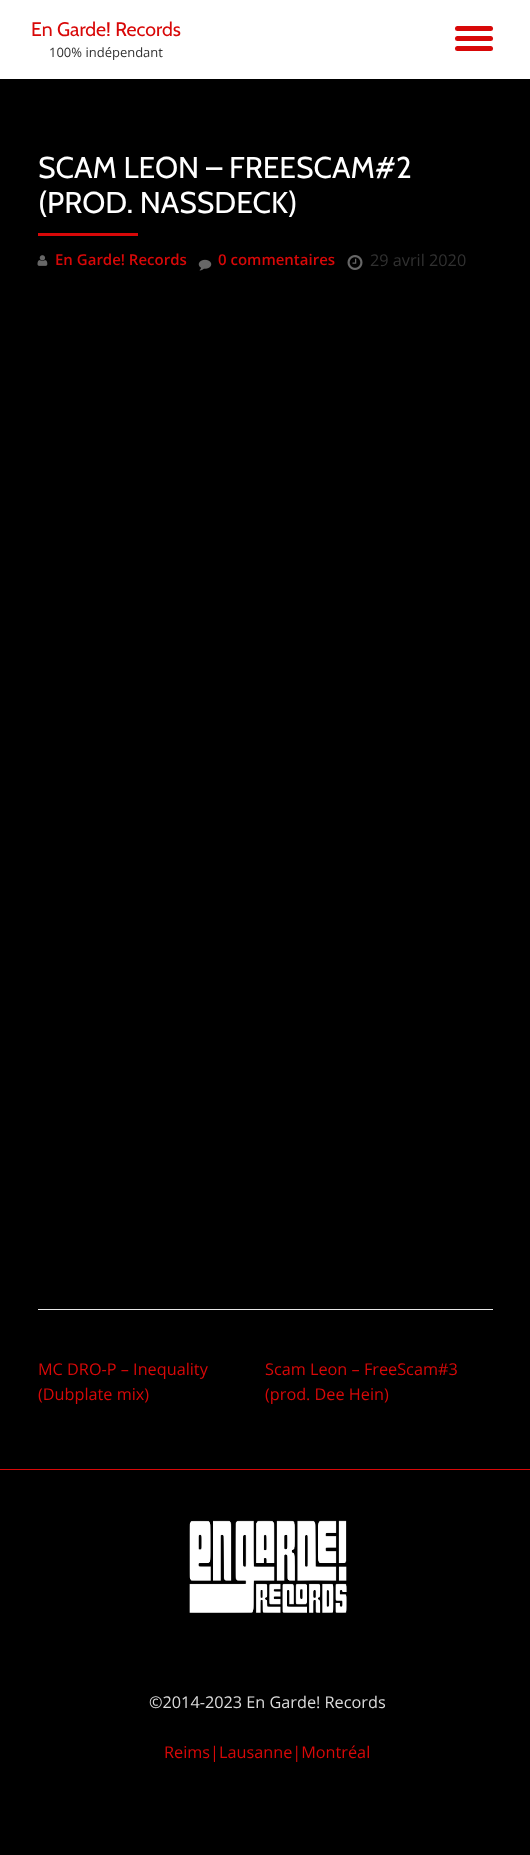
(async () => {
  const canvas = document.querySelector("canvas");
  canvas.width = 530;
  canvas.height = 1855;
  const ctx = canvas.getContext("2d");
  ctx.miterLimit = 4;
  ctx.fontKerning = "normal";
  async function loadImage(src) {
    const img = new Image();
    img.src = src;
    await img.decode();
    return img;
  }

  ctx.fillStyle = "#000000";
  ctx.fillRect(0, 0, 530, 1855);
  ctx.fillStyle = "#ffffff";
  ctx.fillRect(0, 0, 530, 79);
  ctx.fillStyle = "#d80808";
  ctx.beginPath();
  ctx.roundRect(455, 26, 38, 5, 2.5);
  ctx.fill();
  ctx.beginPath();
  ctx.roundRect(455, 36, 38, 5, 2.5);
  ctx.fill();
  ctx.beginPath();
  ctx.roundRect(455, 46, 38, 5, 2.5);
  ctx.fill();
  ctx.fillRect(38, 233, 100, 3);
  ctx.drawImage(await loadImage("img/1.png"), 37, 255, 11, 11);
  ctx.drawImage(await loadImage("img/2.png"), 198, 259, 14, 12);
  ctx.drawImage(await loadImage("img/3.png"), 347, 255, 16, 15);
  ctx.fillStyle = "#e7e7e7";
  ctx.fillRect(38, 1309, 455, 1);
  ctx.fillStyle = "#d80808";
  ctx.fillRect(0, 1469, 530, 1);
  ctx.drawImage(await loadImage("img/4.png"), 189, 1520, 158, 93);
  ctx.font = "19.5px Cabin";
  ctx.fillText("En Garde! Records", 31, 36);
  ctx.font = "13px Open Sans";
  ctx.fillStyle = "#313131";
  ctx.fillText("100% indépendant", 49, 57);
  ctx.font = "30px Cabin";
  ctx.fillStyle = "#ffffff";
  ctx.fillText("SCAM LEON – FREESCAM#2", 38, 178);
  ctx.fillText("(PROD. NASSDECK)", 38, 213);
  ctx.font = "600 15px Open Sans";
  ctx.fillStyle = "#d80808";
  ctx.fillText("En Garde! Records", 55, 265);
  ctx.fillText("0 commentaires", 218, 265);
  ctx.font = "16.25px Open Sans";
  ctx.fillStyle = "#313131";
  ctx.fillText("29 avril 2020", 370, 266);
  ctx.fillStyle = "#d80808";
  for (const [text, x, y] of [
    ["MC DRO-P – Inequality", 38, 1375],
    ["(Dubplate mix)", 38, 1400],
    ["Scam Leon – FreeScam#3", 265, 1375],
    ["(prod. Dee Hein)", 265, 1400],
  ]) {
    ctx.fillText(text, x, y);
  }
  ctx.fillStyle = "#dbdbdb";
  ctx.fillText("©2014-2023 En Garde! Records", 149, 1708);
  ctx.fillStyle = "#d80808";
  ctx.fillText("Reims|Lausanne|Montréal", 164, 1758);
})();
